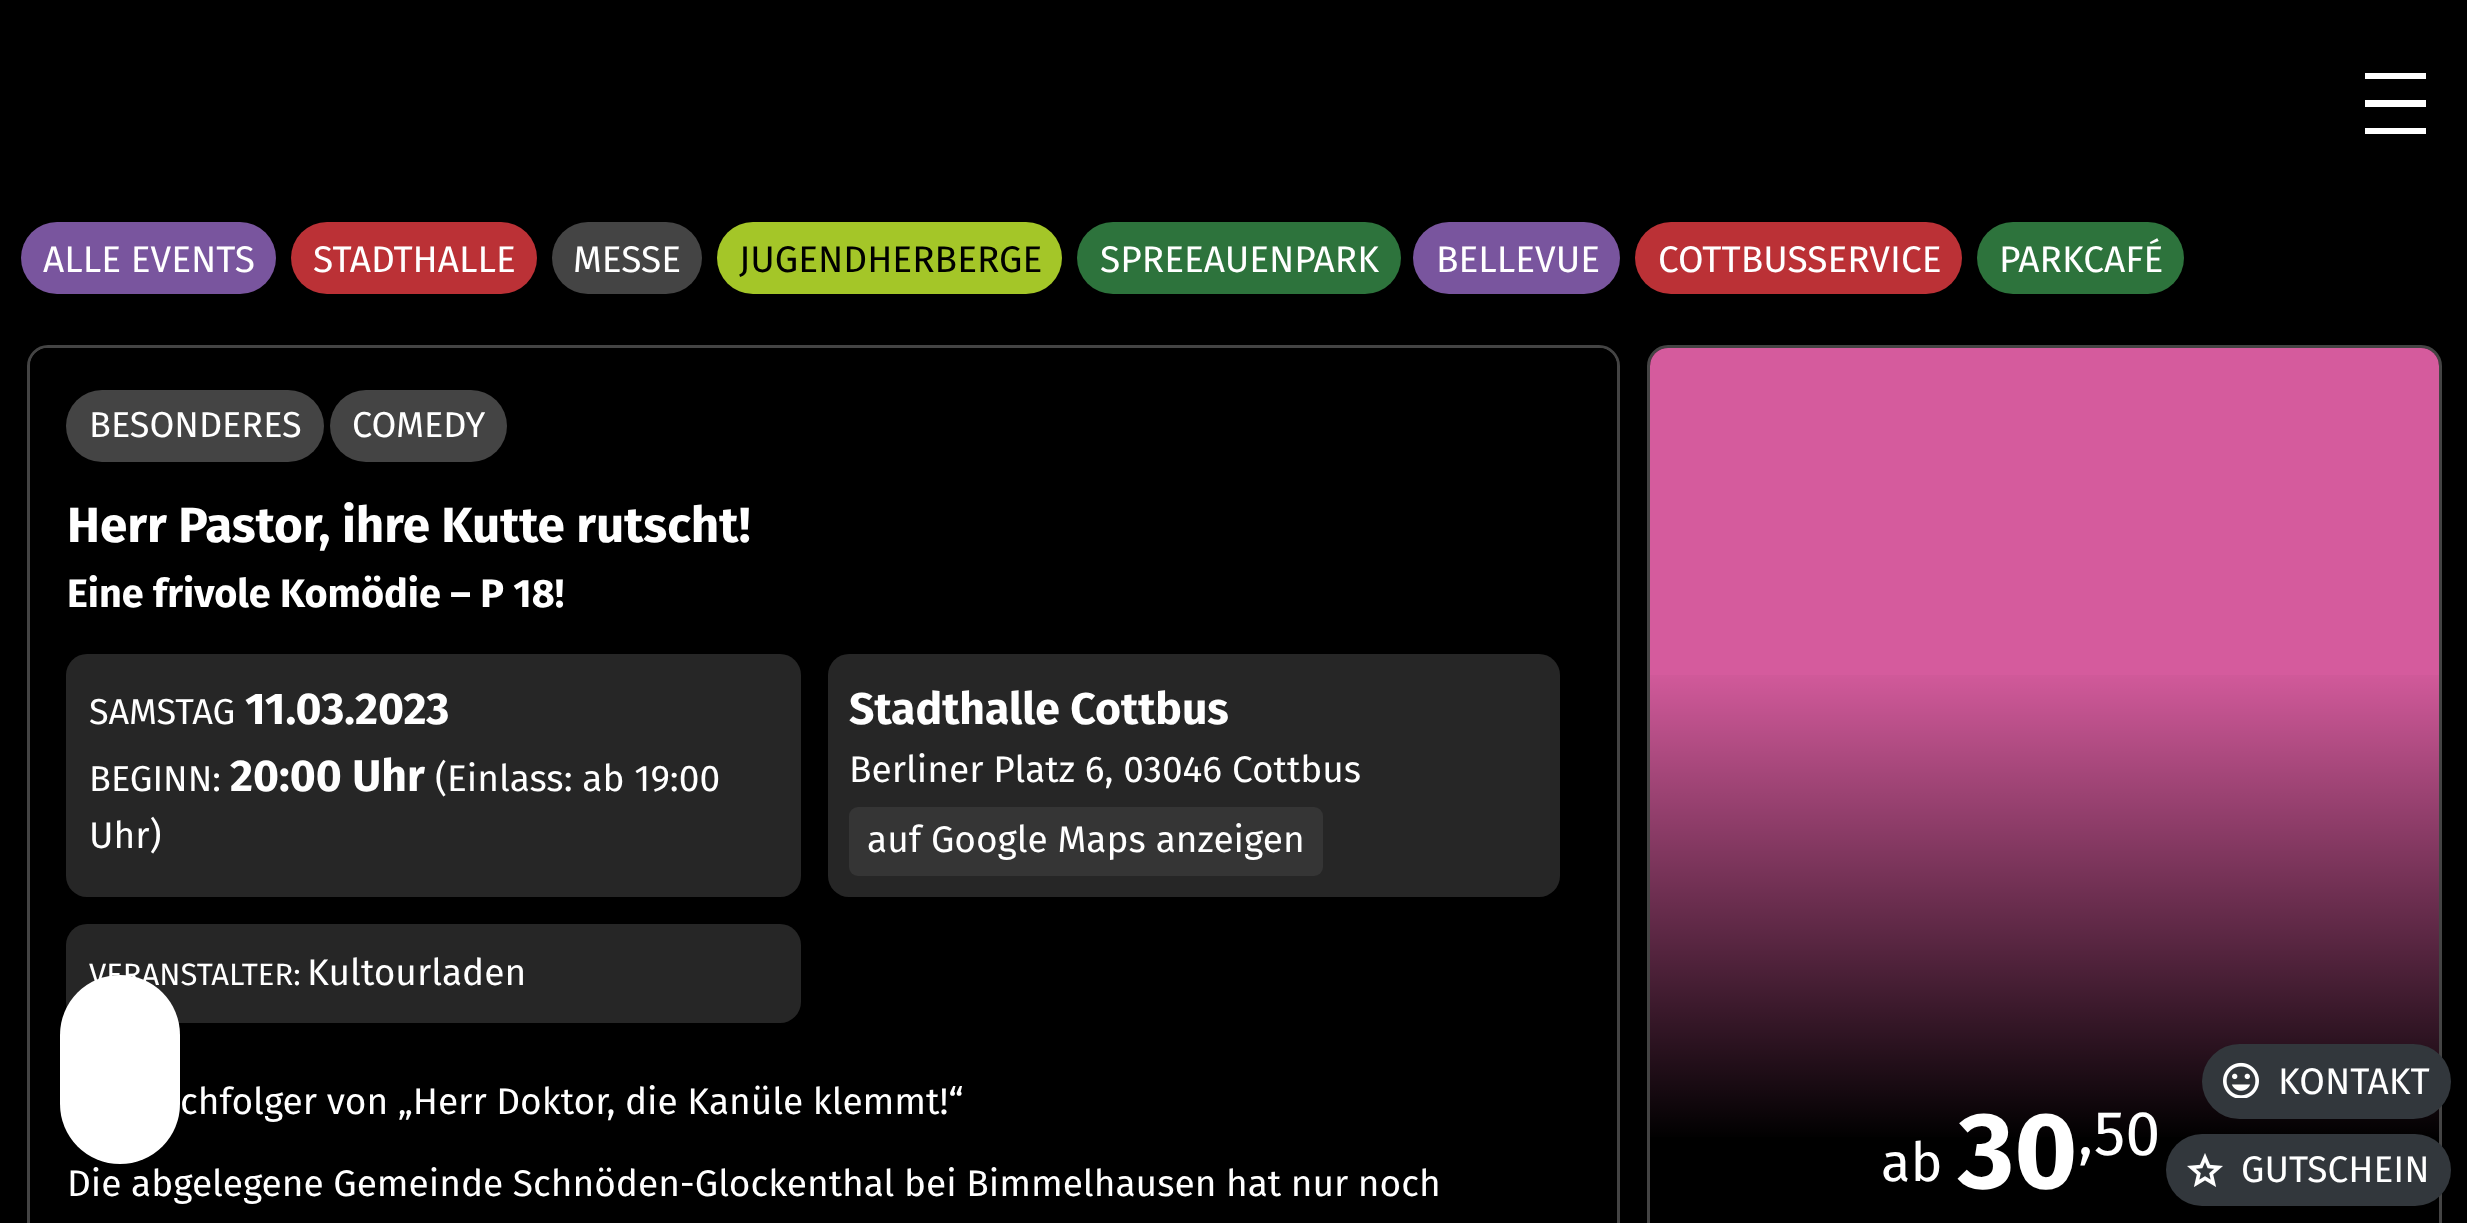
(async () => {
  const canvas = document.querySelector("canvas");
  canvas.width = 2467;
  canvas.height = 1223;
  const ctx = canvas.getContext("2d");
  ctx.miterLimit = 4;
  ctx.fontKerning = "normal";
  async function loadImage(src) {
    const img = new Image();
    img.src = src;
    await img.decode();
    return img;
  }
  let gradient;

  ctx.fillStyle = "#000000";
  ctx.fillRect(0, 0, 2467, 1223);
  for (const [x, y, w, h, color] of [
    [2365, 73, 61, 6, "#ffffff"],
    [2365, 100, 61, 7, "#ffffff"],
    [2365, 128, 61, 6, "#ffffff"],
  ]) {
    ctx.fillStyle = color;
    ctx.fillRect(x, y, w, h);
  }
  ctx.fillStyle = "#79559e";
  ctx.beginPath();
  ctx.roundRect(21, 222, 255, 72, 36);
  ctx.fill();
  ctx.fillStyle = "#bb3136";
  ctx.beginPath();
  ctx.roundRect(291, 222, 246, 72, 36);
  ctx.fill();
  ctx.fillStyle = "#444444";
  ctx.beginPath();
  ctx.roundRect(552, 222, 150, 72, 36);
  ctx.fill();
  ctx.fillStyle = "#a4c628";
  ctx.beginPath();
  ctx.roundRect(717, 222, 345, 72, 36);
  ctx.fill();
  ctx.fillStyle = "#2d733c";
  ctx.beginPath();
  ctx.roundRect(1077, 222, 324, 72, 36);
  ctx.fill();
  ctx.fillStyle = "#79559e";
  ctx.beginPath();
  ctx.roundRect(1413, 222, 207, 72, 36);
  ctx.fill();
  ctx.fillStyle = "#bb3136";
  ctx.beginPath();
  ctx.roundRect(1635, 222, 327, 72, 36);
  ctx.fill();
  ctx.fillStyle = "#2d733c";
  ctx.beginPath();
  ctx.roundRect(1977, 222, 207, 72, 36);
  ctx.fill();
  ctx.beginPath();
  ctx.roundRect(28.5, 346.5, 1590, 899, 19.5);
  ctx.strokeStyle = "#444444";
  ctx.lineWidth = 3;
  ctx.stroke();
  ctx.fillStyle = "#000000";
  ctx.beginPath();
  ctx.roundRect(30, 348, 1587, 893, 18);
  ctx.fill();
  ctx.fillStyle = "#444444";
  ctx.beginPath();
  ctx.roundRect(66, 390, 258, 72, 36);
  ctx.fill();
  ctx.beginPath();
  ctx.roundRect(330, 390, 177, 72, 36);
  ctx.fill();
  ctx.fillStyle = "#262626";
  ctx.beginPath();
  ctx.roundRect(66, 654, 735, 243, 21);
  ctx.fill();
  ctx.beginPath();
  ctx.roundRect(828, 654, 732, 243, 21);
  ctx.fill();
  ctx.fillStyle = "#353535";
  ctx.beginPath();
  ctx.roundRect(849, 807, 474, 69, 9);
  ctx.fill();
  ctx.fillStyle = "#262626";
  ctx.beginPath();
  ctx.roundRect(66, 924, 735, 99, 21);
  ctx.fill();
  ctx.beginPath();
  ctx.roundRect(1648.5, 346.5, 792, 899, 19.5);
  ctx.stroke();
  ctx.fillStyle = "#d55b9d";
  ctx.beginPath();
  ctx.roundRect(1650, 348, 789, 789, [18, 18, 0, 0]);
  ctx.fill();
  gradient = ctx.createLinearGradient(2045, 348, 2045, 1140);
  gradient.addColorStop(0.4, "rgba(0, 0, 0, 0)");
  gradient.addColorStop(1, "#000000");
  ctx.fillStyle = gradient;
  ctx.fillRect(1650, 675, 789, 462);
  ctx.fillStyle = "#32373c";
  ctx.beginPath();
  ctx.roundRect(2202, 1044, 249, 75, 37.5);
  ctx.fill();
  ctx.drawImage(await loadImage("img/1.png"), 2223, 1062, 36, 36);
  ctx.beginPath();
  ctx.roundRect(2166, 1134, 285, 72, 36);
  ctx.fill();
  ctx.drawImage(await loadImage("img/2.png"), 2187, 1153, 36, 34);
  ctx.fillStyle = "#ffffff";
  ctx.beginPath();
  ctx.roundRect(60, 975, 120, 189, 60);
  ctx.fill();
  ctx.font = "37.05px Fira Sans";
  for (const [text, x, y] of [
    ["ALLE EVENTS", 43, 272],
    ["STADTHALLE", 313, 272],
    ["MESSE", 573, 272],
  ]) {
    ctx.fillText(text, x, y);
  }
  ctx.fillStyle = "#000000";
  ctx.fillText("JUGENDHERBERGE", 739, 272);
  ctx.fillStyle = "#ffffff";
  for (const [text, x, y] of [
    ["SPREEAUENPARK", 1100, 272],
    ["BELLEVUE", 1436, 272],
    ["COTTBUSSERVICE", 1658, 272],
    ["PARKCAFÉ", 1999, 272],
  ]) {
    ctx.fillText(text, x, y);
  }
  ctx.font = "36px Fira Sans";
  ctx.fillText("BESONDERES", 89, 437);
  ctx.fillText("COMEDY", 352, 437);
  ctx.wordSpacing = "-0.25px";
  ctx.font = "bold 49.4px Fira Sans";
  ctx.fillText("Herr Pastor, ihre Kutte rutscht!", 67, 542);
  ctx.wordSpacing = "0px";
  ctx.font = "bold 39.6px Fira Sans";
  ctx.fillText("Eine frivole Komödie – P 18!", 67, 607);
  ctx.font = "36px Fira Sans";
  ctx.fillText("SAMSTAG", 89, 724);
  ctx.font = "bold 44.5px Fira Sans";
  ctx.fillText("11.03.2023", 245, 724);
  ctx.font = "36px Fira Sans";
  ctx.fillText("BEGINN:", 89, 791);
  ctx.font = "bold 44.5px Fira Sans";
  ctx.fillText("20:00 Uhr", 230, 791);
  ctx.font = "37.05px Fira Sans";
  ctx.fillText("(Einlass: ab 19:00", 435, 791);
  ctx.fillText("Uhr)", 89, 848);
  ctx.font = "bold 44.5px Fira Sans";
  ctx.fillText("Stadthalle Cottbus", 849, 724);
  ctx.font = "37.05px Fira Sans";
  ctx.fillText("Berliner Platz 6, 03046 Cottbus", 849, 782);
  ctx.fillText("auf Google Maps anzeigen", 867, 852);
  ctx.font = "31px Fira Sans";
  ctx.fillText("VERANSTALTER:", 89, 985);
  ctx.font = "37.05px Fira Sans";
  ctx.fillText("Kultourladen", 307, 985);
  ctx.wordSpacing = "-0.25px";
  ctx.fillText("chfolger von „Herr Doktor, die Kanüle klemmt!“", 180, 1114);
  ctx.fillText("Die abgelegene Gemeinde Schnöden-Glockenthal bei Bimmelhausen hat nur noch", 67, 1196);
  ctx.wordSpacing = "0px";
  ctx.font = "54px Fira Sans";
  ctx.fillText("ab", 1881, 1181);
  ctx.font = "bold 108px Fira Sans";
  ctx.fillText("30", 1958, 1188);
  ctx.font = "63px Fira Sans";
  ctx.fillText(",50", 2078, 1155);
  ctx.font = "37.05px Fira Sans";
  ctx.fillText("KONTAKT", 2278, 1094);
  ctx.fillText("GUTSCHEIN", 2241, 1182);
})();
